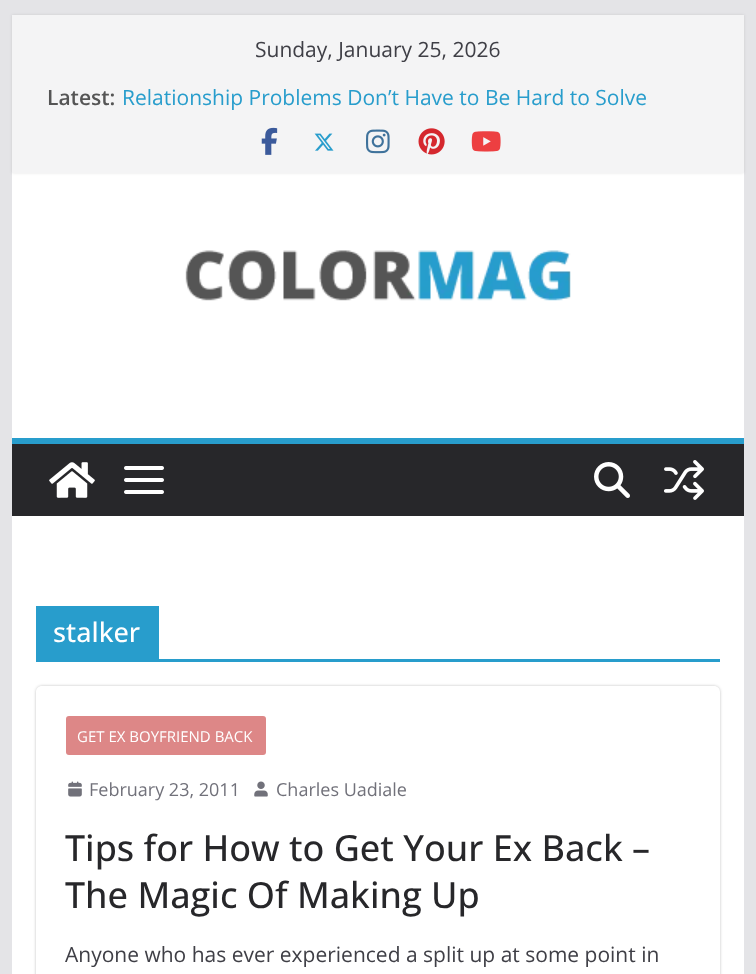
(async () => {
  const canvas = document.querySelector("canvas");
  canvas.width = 756;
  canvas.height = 974;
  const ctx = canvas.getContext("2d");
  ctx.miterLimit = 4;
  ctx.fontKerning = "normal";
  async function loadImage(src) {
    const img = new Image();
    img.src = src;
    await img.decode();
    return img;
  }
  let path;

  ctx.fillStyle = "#e4e4e7";
  ctx.fillRect(0, 0, 756, 974);
  ctx.fillStyle = "#ffffff";
  ctx.fillRect(12, 173, 732, 265);
  ctx.fillStyle = "rgba(0, 0, 0, 0.1)";
  ctx.filter = "blur(1.5px)";
  ctx.beginPath();
  ctx.rect(12, 15, 732, 158);
  ctx.fill();
  ctx.filter = "none";
  ctx.fillStyle = "#f4f4f5";
  ctx.fillRect(12, 15, 732, 158);
  ctx.drawImage(await loadImage("img/1.png"), 261, 127, 17, 28);
  ctx.drawImage(await loadImage("img/2.png"), 314, 133, 20, 18);
  ctx.drawImage(await loadImage("img/3.png"), 366, 129, 24, 25);
  ctx.drawImage(await loadImage("img/4.png"), 418, 128, 27, 27);
  ctx.drawImage(await loadImage("img/5.png"), 471, 131, 30, 21);
  ctx.drawImage(await loadImage("img/6.png"), 185, 250, 386, 51);
  ctx.fillStyle = "#27272a";
  ctx.fillRect(12, 444, 732, 72);
  ctx.fillStyle = "#289dcc";
  ctx.fillRect(12, 438, 732, 6);
  ctx.drawImage(await loadImage("img/7.png"), 49, 462, 46, 36);
  ctx.drawImage(await loadImage("img/8.png"), 124, 466, 40, 28);
  ctx.drawImage(await loadImage("img/9.png"), 594, 462, 36, 36);
  ctx.drawImage(await loadImage("img/10.png"), 664, 460, 40, 40);
  for (const [x, y, w, h, color] of [
    [12, 516, 732, 458, "#ffffff"],
    [36, 659, 684, 3, "#289dcc"],
    [36, 606, 123, 53, "#289dcc"],
  ]) {
    ctx.fillStyle = color;
    ctx.fillRect(x, y, w, h);
  }
  ctx.save();
  path = new Path2D("M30 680H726V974H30ZM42 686H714C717.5 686 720 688.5 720 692V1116C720 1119.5 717.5 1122 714 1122H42C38.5 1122 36 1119.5 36 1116V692C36 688.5 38.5 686 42 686Z");
  ctx.clip(path, "evenodd");
  ctx.fillStyle = "rgba(0, 0, 0, 0.24)";
  ctx.filter = "blur(1.5px)";
  ctx.beginPath();
  ctx.roundRect(36, 686, 684, 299, 6);
  ctx.fill();
  ctx.filter = "none";
  ctx.restore();
  ctx.fillStyle = "#dd8787";
  ctx.beginPath();
  ctx.roundRect(66, 716, 200, 39, 3);
  ctx.fill();
  ctx.drawImage(await loadImage("img/11.png"), 68, 781, 14, 16);
  ctx.drawImage(await loadImage("img/12.png"), 254, 781, 14, 16);
  ctx.font = "21px Open Sans";
  ctx.fillStyle = "#3f3f46";
  ctx.fillText("Sunday, January 25, 2026", 255, 57);
  ctx.font = "600 21px Open Sans";
  ctx.fillStyle = "#555555";
  ctx.fillText("Latest:", 47, 105);
  ctx.font = "21px Open Sans";
  ctx.fillStyle = "#289dcc";
  ctx.fillText("Relationship Problems Don’t Have to Be Hard to Solve", 122, 105);
  ctx.font = "500 27px Open Sans";
  ctx.fillStyle = "#ffffff";
  ctx.fillText("stalker", 53, 642);
  ctx.font = "15px Open Sans";
  ctx.fillText("GET EX BOYFRIEND BACK", 77, 742);
  ctx.font = "18px Open Sans";
  ctx.fillStyle = "#71717a";
  ctx.fillText("February 23, 2011", 89, 796);
  ctx.fillText("Charles Uadiale", 276, 796);
  ctx.font = "500 36px Open Sans";
  ctx.fillStyle = "#27272a";
  ctx.fillText("Tips for How to Get Your Ex Back –", 65, 861);
  ctx.fillText("The Magic Of Making Up", 65, 908);
  ctx.font = "21px Open Sans";
  ctx.fillStyle = "#3f3f46";
  ctx.fillText("Anyone who has ever experienced a split up at some point in", 65, 962);
})();
